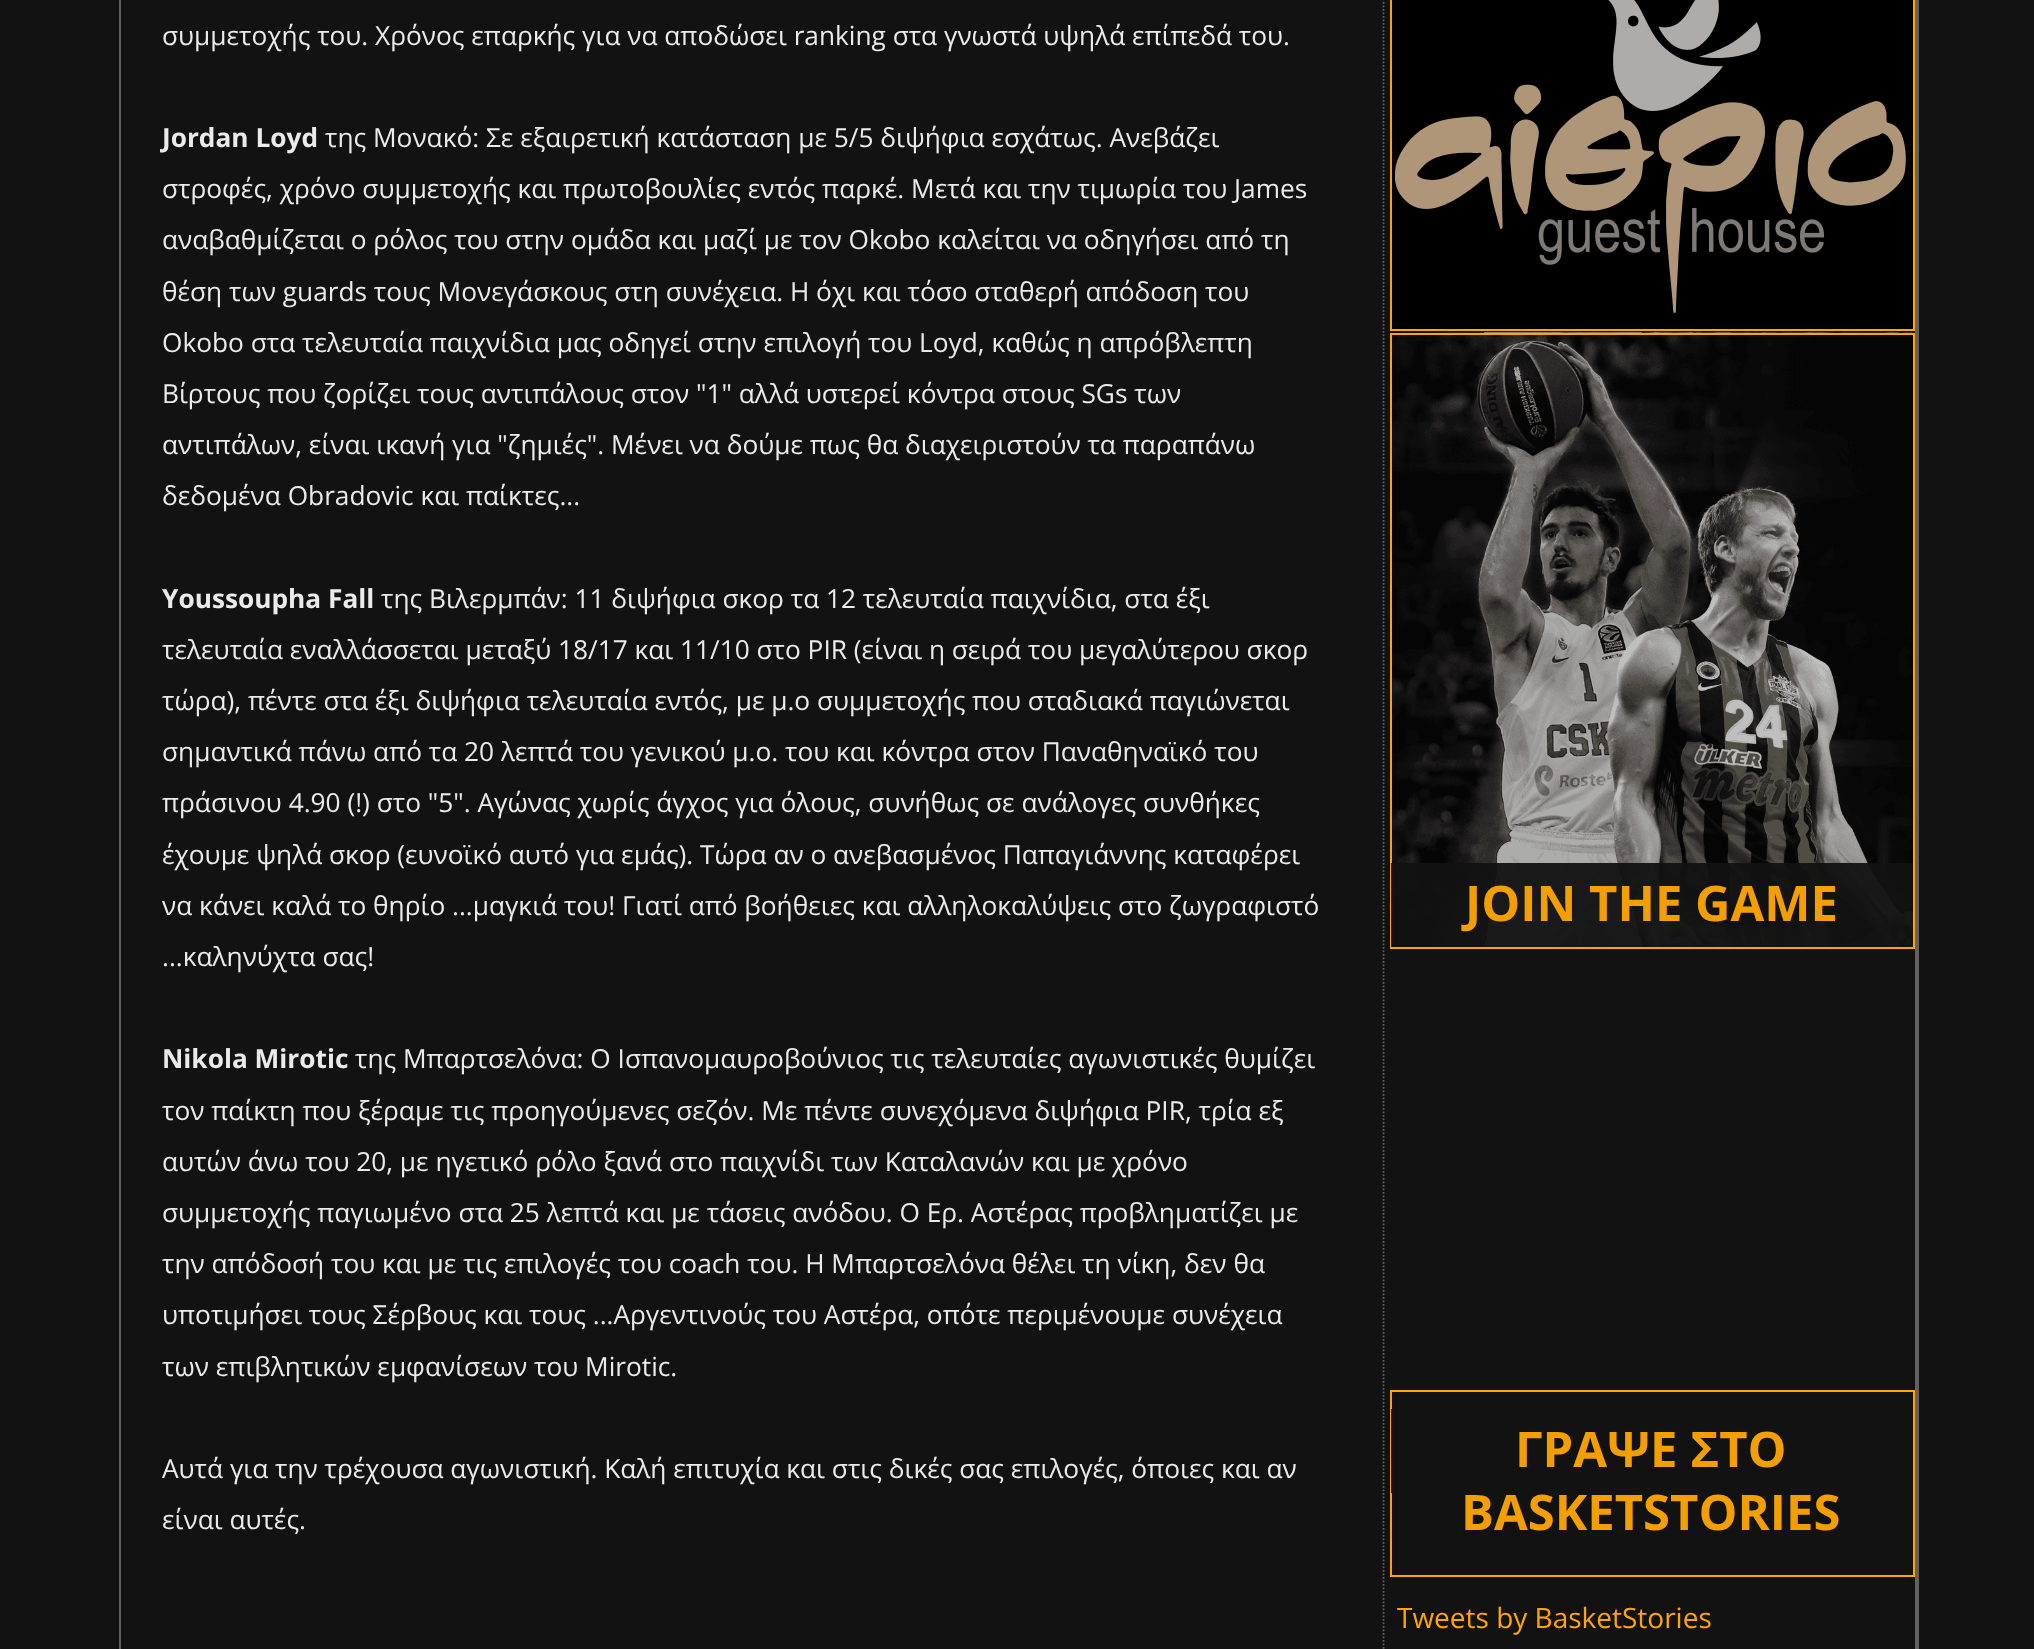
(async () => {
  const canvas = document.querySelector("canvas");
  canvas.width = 2034;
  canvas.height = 1649;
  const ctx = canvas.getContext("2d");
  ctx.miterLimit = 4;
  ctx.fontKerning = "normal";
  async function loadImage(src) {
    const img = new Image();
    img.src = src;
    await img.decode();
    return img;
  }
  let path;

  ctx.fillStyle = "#121212";
  ctx.fillRect(0, 0, 2034, 1649);
  ctx.fillStyle = "#616161";
  ctx.fillRect(1915, 0, 4, 1649);
  ctx.fillRect(119, 0, 2, 1649);
  path = new Path2D("M1383.5-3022V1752");
  ctx.strokeStyle = "#616161";
  ctx.lineWidth = 1.8;
  ctx.setLineDash([1.75, 1.75]);
  ctx.stroke(path);
  ctx.fillStyle = "#000000";
  ctx.beginPath();
  ctx.rect(1391, -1, 523, 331);
  ctx.fill();
  ctx.strokeStyle = "#ffa500";
  ctx.lineWidth = 2;
  ctx.setLineDash([]);
  ctx.stroke();
  ctx.drawImage(await loadImage("img/1.png"), 1395, 0, 511, 313);
  ctx.drawImage(await loadImage("img/2.png"), 1389, 332, 526, 617);
  ctx.strokeRect(1391, 334, 523, 614);
  ctx.fillStyle = "rgba(18, 18, 18, 0.95)";
  ctx.fillRect(1391, 863, 522, 84);
  ctx.strokeRect(1391, 1391, 523, 185);
  ctx.fillRect(1391, 1409, 1, 84);
  ctx.font = "26.25px Open Sans";
  ctx.fillStyle = "#ebebeb";
  ctx.fillText("συμμετοχής του. Χρόνος επαρκής για να αποδώσει ranking στα γνωστά υψηλά επίπεδά του.", 162, 45);
  ctx.font = "bold 26.25px Open Sans";
  ctx.fillText("Jordan Loyd", 162, 147);
  ctx.font = "26.25px Open Sans";
  for (const [text, x, y] of [
    ["της Μονακό: Σε εξαιρετική κατάσταση με 5/5 διψήφια εσχάτως. Ανεβάζει", 325, 147],
    ["στροφές, χρόνο συμμετοχής και πρωτοβουλίες εντός παρκέ. Μετά και την τιμωρία του James", 162, 198],
    ["αναβαθμίζεται ο ρόλος του στην ομάδα και μαζί με τον Okobo καλείται να οδηγήσει από τη", 162, 249],
    ["θέση των guards τους Μονεγάσκους στη συνέχεια. Η όχι και τόσο σταθερή απόδοση του", 162, 301],
    ["Okobo στα τελευταία παιχνίδια μας οδηγεί στην επιλογή του Loyd, καθώς η απρόβλεπτη", 162, 352],
    ["Βίρτους που ζορίζει τους αντιπάλους στον \"1\" αλλά υστερεί κόντρα στους SGs των", 162, 403],
    ["αντιπάλων, είναι ικανή για \"ζημιές\". Μένει να δούμε πως θα διαχειριστούν τα παραπάνω", 162, 454],
    ["δεδομένα Obradovic και παίκτες...", 162, 505],
  ]) {
    ctx.fillText(text, x, y);
  }
  ctx.font = "bold 26.25px Open Sans";
  ctx.fillText("Youssoupha Fall", 162, 608);
  ctx.font = "26.25px Open Sans";
  for (const [text, x, y] of [
    ["της Βιλερμπάν: 11 διψήφια σκορ τα 12 τελευταία παιχνίδια, στα έξι", 381, 608],
    ["τελευταία εναλλάσσεται μεταξύ 18/17 και 11/10 στο PIR (είναι η σειρά του μεγαλύτερου σκορ", 162, 659],
    ["τώρα), πέντε στα έξι διψήφια τελευταία εντός, με μ.ο συμμετοχής που σταδιακά παγιώνεται", 162, 710],
    ["σημαντικά πάνω από τα 20 λεπτά του γενικού μ.ο. του και κόντρα στον Παναθηναϊκό του", 162, 761],
    ["πράσινου 4.90 (!) στο \"5\". Αγώνας χωρίς άγχος για όλους, συνήθως σε ανάλογες συνθήκες", 162, 812],
    ["έχουμε ψηλά σκορ (ευνοϊκό αυτό για εμάς). Τώρα αν ο ανεβασμένος Παπαγιάννης καταφέρει", 162, 864],
    ["να κάνει καλά το θηρίο ...μαγκιά του! Γιατί από βοήθειες και αλληλοκαλύψεις στο ζωγραφιστό", 162, 915],
    ["...καληνύχτα σας!", 162, 966],
  ]) {
    ctx.fillText(text, x, y);
  }
  ctx.font = "bold 26.25px Open Sans";
  ctx.fillText("Nikola Mirotic", 162, 1068);
  ctx.font = "26.25px Open Sans";
  for (const [text, x, y] of [
    ["της Μπαρτσελόνα: Ο Ισπανομαυροβούνιος τις τελευταίες αγωνιστικές θυμίζει", 355, 1068],
    ["τον παίκτη που ξέραμε τις προηγούμενες σεζόν. Με πέντε συνεχόμενα διψήφια PIR, τρία εξ", 162, 1120],
    ["αυτών άνω του 20, με ηγετικό ρόλο ξανά στο παιχνίδι των Καταλανών και με χρόνο", 162, 1171],
    ["συμμετοχής παγιωμένο στα 25 λεπτά και με τάσεις ανόδου. Ο Ερ. Αστέρας προβληματίζει με", 162, 1222],
    ["την απόδοσή του και με τις επιλογές του coach του. Η Μπαρτσελόνα θέλει τη νίκη, δεν θα", 162, 1273],
    ["υποτιμήσει τους Σέρβους και τους ...Αργεντινούς του Αστέρα, οπότε περιμένουμε συνέχεια", 162, 1324],
    ["των επιβλητικών εμφανίσεων του Mirotic.", 162, 1376],
    ["Αυτά για την τρέχουσα αγωνιστική. Καλή επιτυχία και στις δικές σας επιλογές, όποιες και αν", 162, 1478],
    ["είναι αυτές.", 162, 1529],
  ]) {
    ctx.fillText(text, x, y);
  }
  ctx.font = "bold 49px Open Sans";
  ctx.fillStyle = "#f39e01";
  for (const [text, x, y] of [
    ["JOIN THE GAME", 1465, 921],
    ["ΓΡΑΨΕ ΣΤΟ", 1515, 1467],
    ["BASKETSTORIES", 1461, 1530],
  ]) {
    ctx.fillText(text, x, y);
  }
  ctx.font = "28px Open Sans";
  ctx.fillStyle = "#ffa500";
  ctx.fillText("Tweets by BasketStories", 1397, 1628);
})();
